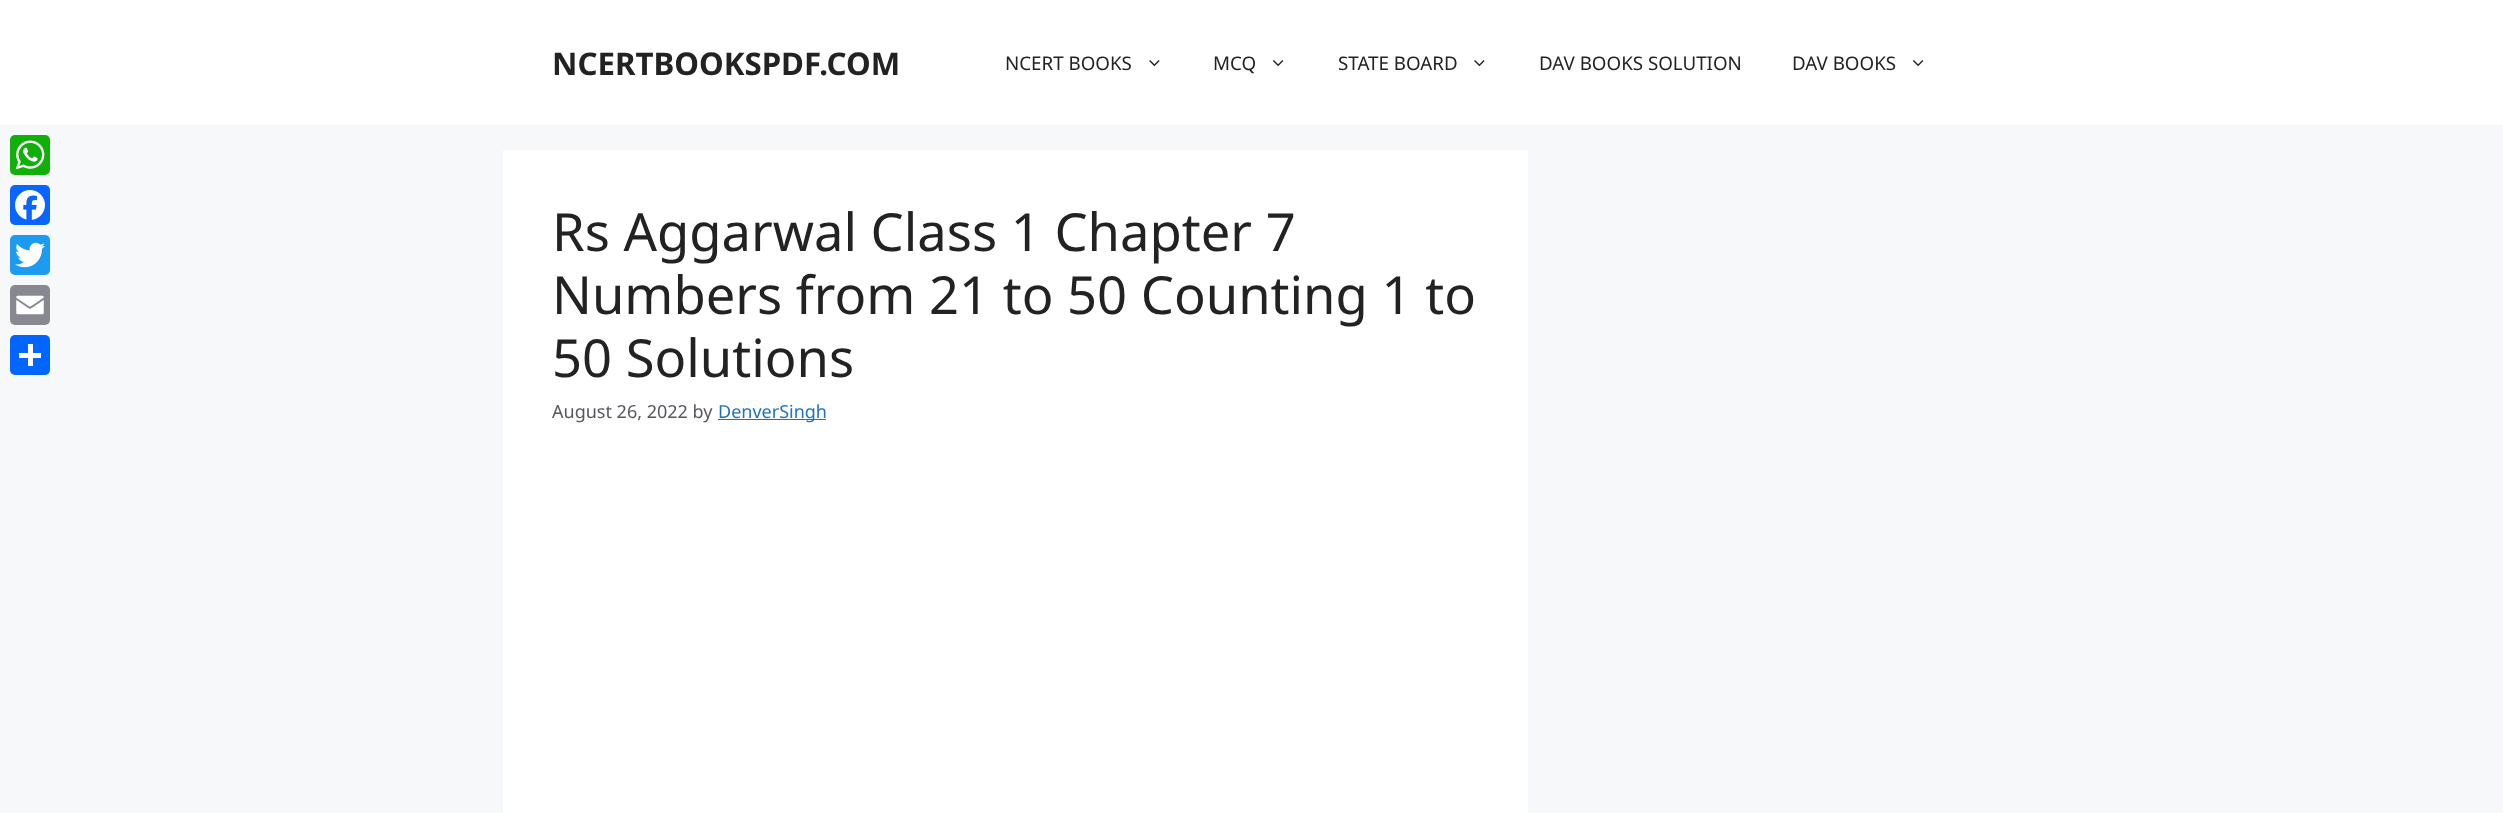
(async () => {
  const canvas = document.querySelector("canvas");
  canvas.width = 2503;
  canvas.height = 813;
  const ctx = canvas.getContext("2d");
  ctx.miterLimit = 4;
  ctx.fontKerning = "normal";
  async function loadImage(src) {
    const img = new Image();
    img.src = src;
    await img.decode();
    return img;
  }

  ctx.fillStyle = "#f7f8f9";
  ctx.fillRect(0, 0, 2503, 813);
  ctx.fillStyle = "#ffffff";
  ctx.fillRect(0, 0, 2503, 125);
  ctx.drawImage(await loadImage("img/1.png"), 1149, 60, 11, 7);
  ctx.drawImage(await loadImage("img/2.png"), 1273, 60, 11, 7);
  ctx.drawImage(await loadImage("img/1.png"), 1474, 60, 11, 7);
  ctx.drawImage(await loadImage("img/2.png"), 1913, 60, 11, 7);
  ctx.fillStyle = "#12af0a";
  ctx.beginPath();
  ctx.roundRect(10, 135, 40, 40, 5);
  ctx.fill();
  ctx.drawImage(await loadImage("img/3.png"), 15, 140, 30, 30);
  ctx.fillStyle = "#0866ff";
  ctx.beginPath();
  ctx.roundRect(10, 185, 40, 40, 5);
  ctx.fill();
  ctx.drawImage(await loadImage("img/4.png"), 15, 190, 30, 30);
  ctx.fillStyle = "#1d9bf0";
  ctx.beginPath();
  ctx.roundRect(10, 235, 40, 40, 5);
  ctx.fill();
  ctx.drawImage(await loadImage("img/5.png"), 15, 242, 30, 26);
  ctx.fillStyle = "#888990";
  ctx.beginPath();
  ctx.roundRect(10, 285, 40, 40, 5);
  ctx.fill();
  ctx.drawImage(await loadImage("img/6.png"), 16, 295, 28, 20);
  ctx.fillStyle = "#0166ff";
  ctx.beginPath();
  ctx.roundRect(10, 335, 40, 40, 5);
  ctx.fill();
  for (const [x, y, w, h, color] of [
    [28, 344, 5, 22, "#ffffff"],
    [19, 353, 22, 5, "#ffffff"],
    [503, 150, 1025, 663, "#ffffff"],
    [718, 419, 108, 1, "#1e73be"],
  ]) {
    ctx.fillStyle = color;
    ctx.fillRect(x, y, w, h);
  }
  ctx.font = "bold 31.25px Noto Sans";
  ctx.fillStyle = "#222222";
  ctx.fillText("NCERTBOOKSPDF.COM", 552, 75);
  ctx.font = "18.75px Noto Sans";
  for (const [text, x, y] of [
    ["NCERT BOOKS", 1005, 70],
    ["MCQ", 1213, 70],
    ["STATE BOARD", 1338, 70],
    ["DAV BOOKS SOLUTION", 1539, 70],
    ["DAV BOOKS", 1792, 70],
  ]) {
    ctx.fillText(text, x, y);
  }
  ctx.font = "52.5px Noto Sans";
  for (const [text, x, y] of [
    ["Rs Aggarwal Class 1 Chapter 7", 552, 251],
    ["Numbers from 21 to 50 Counting 1 to", 552, 314],
    ["50 Solutions", 552, 377],
  ]) {
    ctx.fillText(text, x, y);
  }
  ctx.font = "18px Noto Sans";
  ctx.fillStyle = "#575760";
  ctx.fillText("August 26, 2022 by", 552, 418);
  ctx.fillStyle = "#1e73be";
  ctx.fillText("DenverSingh", 718, 418);
})();
